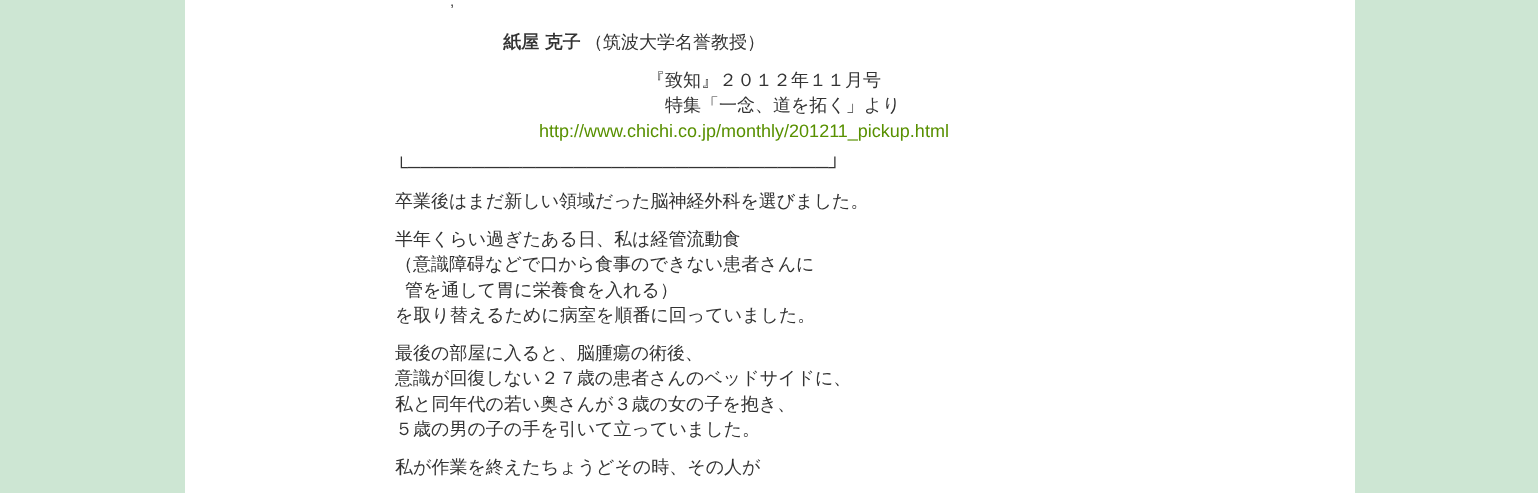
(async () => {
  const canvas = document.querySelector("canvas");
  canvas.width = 1538;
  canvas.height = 493;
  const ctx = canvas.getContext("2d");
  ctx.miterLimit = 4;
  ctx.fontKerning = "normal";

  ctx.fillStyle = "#cde6d3";
  ctx.fillRect(0, 0, 1538, 493);
  ctx.fillStyle = "#ffffff";
  ctx.fillRect(185, 0, 1170, 493);
  ctx.font = "15px Liberation Sans";
  ctx.fillStyle = "#333333";
  ctx.fillText(",", 450, 6);
  ctx.font = "bold 18px WenQuanYi Zen Hei";
  ctx.fillText("紙屋 克子", 503, 48);
  ctx.font = "500 18px WenQuanYi Zen Hei";
  for (const [text, x, y] of [
    ["（筑波大学名誉教授）", 585, 48],
    ["『致知』２０１２年１１月号", 647, 86],
    ["特集「一念、道を拓く」より", 665, 111],
  ]) {
    ctx.fillText(text, x, y);
  }
  ctx.font = "18px Liberation Sans";
  ctx.fillStyle = "#589000";
  ctx.fillText("http://www.chichi.co.jp/monthly/201211_pickup.html", 539, 137);
  ctx.fillStyle = "#333333";
  ctx.fillText("└─────────────────────────────────┘", 395, 173);
  ctx.font = "500 18px WenQuanYi Zen Hei";
  for (const [text, x, y] of [
    ["卒業後はまだ新しい領域だった脳神経外科を選びました。", 395, 207],
    ["半年くらい過ぎたある日、私は経管流動食", 395, 245],
    ["（意識障碍などで口から食事のできない患者さんに", 395, 270],
    ["管を通して胃に栄養食を入れる）", 405, 296],
    ["を取り替えるために病室を順番に回っていました。", 395, 321],
    ["最後の部屋に入ると、脳腫瘍の術後、", 395, 359],
    ["意識が回復しない２７歳の患者さんのベッドサイドに、", 395, 384],
    ["私と同年代の若い奥さんが３歳の女の子を抱き、", 395, 410],
    ["５歳の男の子の手を引いて立っていました。", 395, 435],
    ["私が作業を終えたちょうどその時、その人が", 395, 473],
  ]) {
    ctx.fillText(text, x, y);
  }
})();
